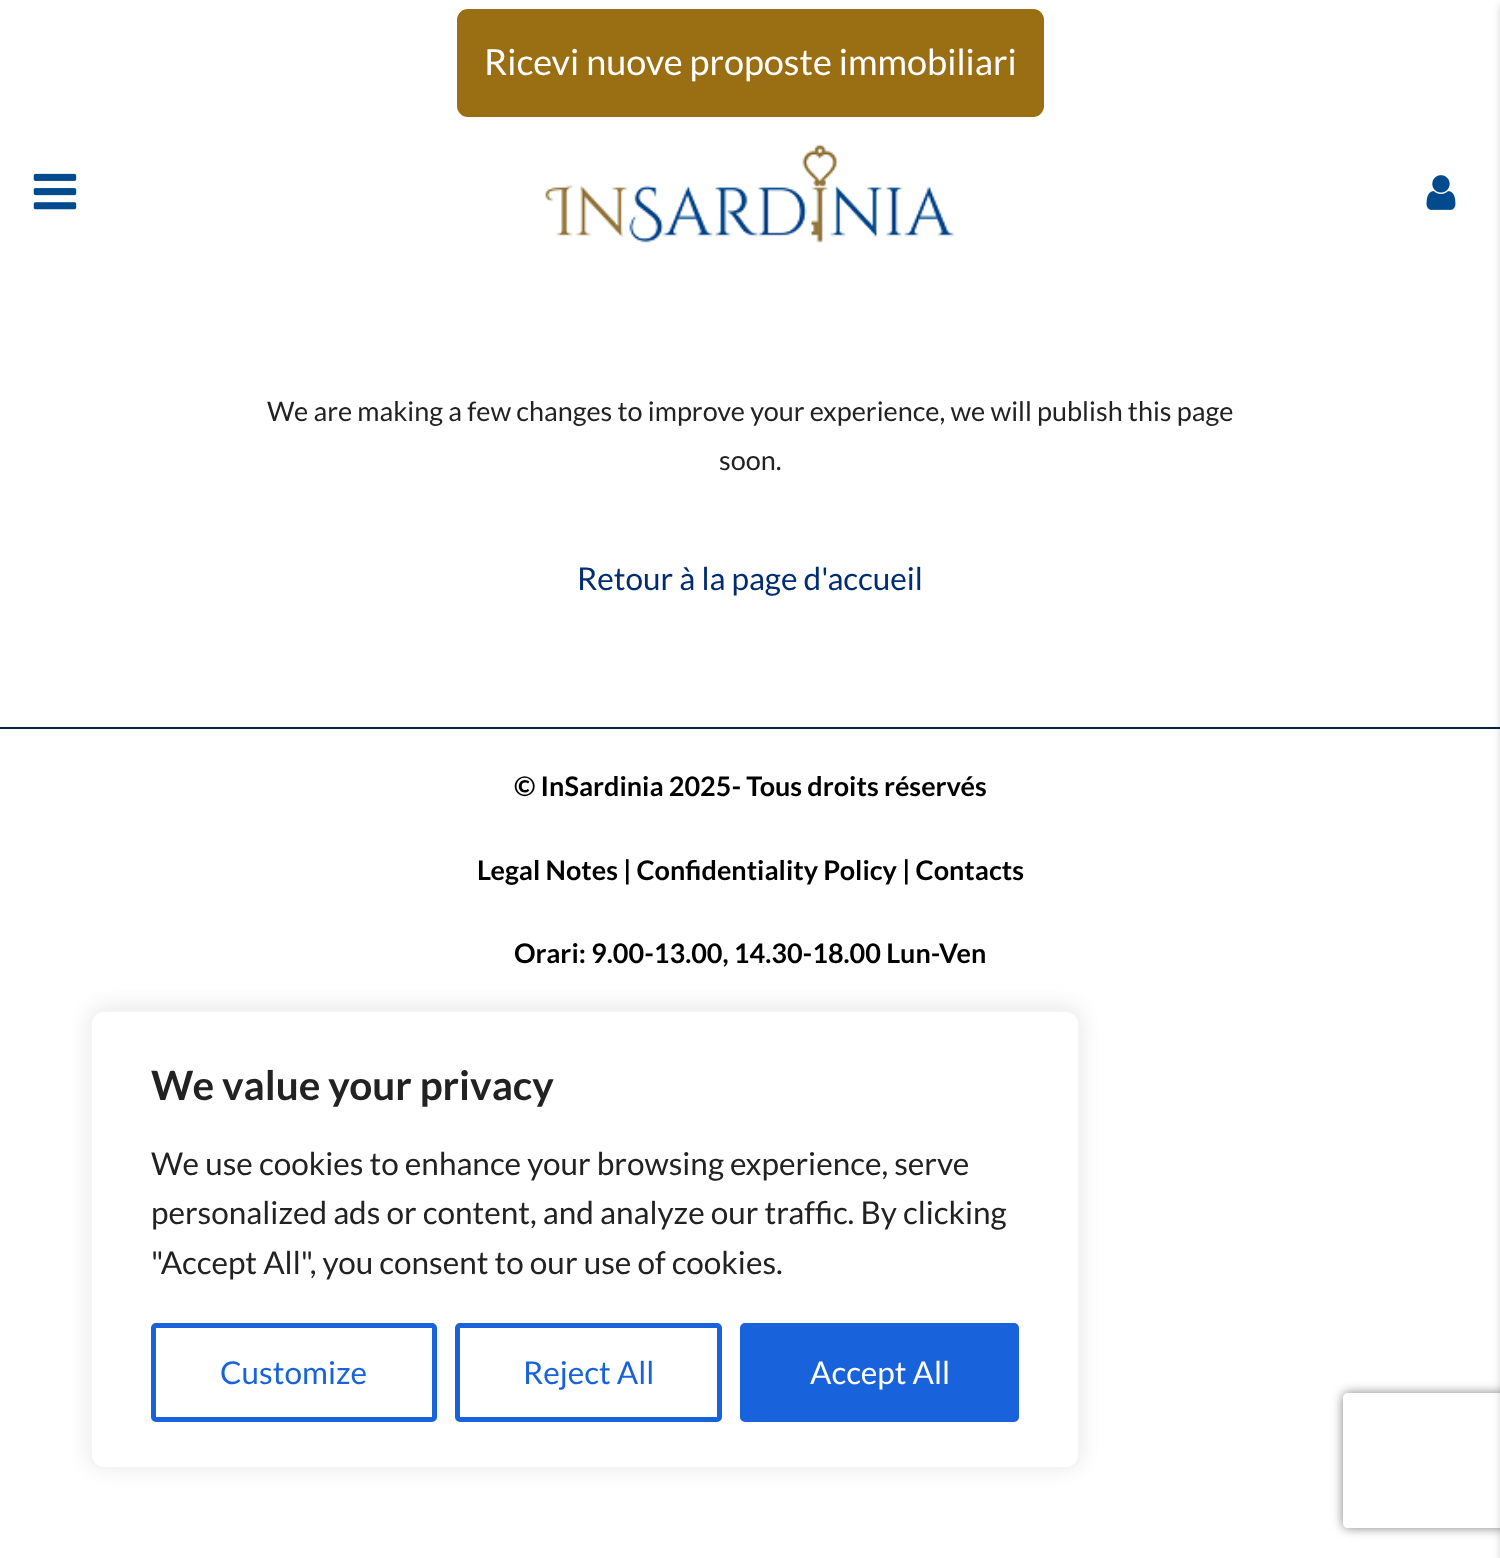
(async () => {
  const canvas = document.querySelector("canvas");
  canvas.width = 1500;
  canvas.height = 1558;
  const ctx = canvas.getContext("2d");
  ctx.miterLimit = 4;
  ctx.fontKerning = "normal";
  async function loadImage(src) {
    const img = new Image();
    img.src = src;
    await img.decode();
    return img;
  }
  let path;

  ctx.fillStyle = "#ffffff";
  ctx.fillRect(0, 0, 1500, 1558);
  ctx.fillStyle = "#9a6e12";
  ctx.beginPath();
  ctx.roundRect(459.5, 11.5, 582, 103, 8.5);
  ctx.fill();
  ctx.strokeStyle = "#9a6e12";
  ctx.lineWidth = 5;
  ctx.stroke();
  ctx.drawImage(await loadImage("img/1.png"), 33, 173, 44, 37);
  ctx.drawImage(await loadImage("img/2.png"), 545, 144, 409, 99);
  ctx.drawImage(await loadImage("img/3.png"), 1426, 175, 30, 35);
  ctx.fillStyle = "#00243f";
  ctx.fillRect(0, 727, 1500, 2);
  ctx.fillStyle = "rgba(0, 0, 0, 0.2)";
  ctx.filter = "blur(4.5px)";
  ctx.beginPath();
  ctx.rect(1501, 5, 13, 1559);
  ctx.fill();
  ctx.filter = "none";
  ctx.fillStyle = "rgba(172, 171, 171, 0.3)";
  ctx.filter = "blur(11px)";
  ctx.beginPath();
  ctx.roundRect(90, 1008, 990, 459, 14);
  ctx.fill();
  ctx.filter = "none";
  ctx.fillStyle = "#ffffff";
  ctx.beginPath();
  ctx.roundRect(91, 1011, 988, 457, 13);
  ctx.fill();
  ctx.strokeStyle = "#f4f4f4";
  ctx.lineWidth = 2;
  ctx.stroke();
  ctx.beginPath();
  ctx.roundRect(153.5, 1325.5, 281, 94, 2.5);
  ctx.strokeStyle = "#1863dc";
  ctx.lineWidth = 5;
  ctx.stroke();
  ctx.beginPath();
  ctx.roundRect(457.5, 1325.5, 262, 94, 2.5);
  ctx.stroke();
  ctx.fillStyle = "#1863dc";
  ctx.beginPath();
  ctx.roundRect(742.5, 1325.5, 274, 94, 2.5);
  ctx.fill();
  ctx.stroke();
  ctx.save();
  path = new Path2D("M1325 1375H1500V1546H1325ZM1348 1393H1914C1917 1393 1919 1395 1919 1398V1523C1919 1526 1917 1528 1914 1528H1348C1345 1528 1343 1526 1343 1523V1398C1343 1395 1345 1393 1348 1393Z");
  ctx.clip(path, "evenodd");
  ctx.fillStyle = "#808080";
  ctx.filter = "blur(5.5px)";
  ctx.beginPath();
  ctx.roundRect(1343, 1393, 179, 135, 5);
  ctx.fill();
  ctx.filter = "none";
  ctx.restore();
  ctx.font = "36px Lato";
  ctx.fillStyle = "#ffffff";
  ctx.fillText("Ricevi nuove proposte immobiliari", 484, 75);
  ctx.font = "27px Lato";
  ctx.fillStyle = "#222222";
  ctx.fillText("We are making a few changes to improve your experience, we will publish this page", 267, 421);
  ctx.fillText("soon.", 719, 470);
  ctx.font = "31.5px Lato";
  ctx.fillStyle = "#002d72";
  ctx.fillText("Retour à la page d'accueil", 577, 590);
  ctx.font = "bold 27px Lato";
  ctx.fillStyle = "#000000";
  for (const [text, x, y] of [
    ["© InSardinia 2025- Tous droits réservés", 514, 796],
    ["Legal Notes | Confidentiality Policy | Contacts", 477, 880],
    ["Orari: 9.00-13.00, 14.30-18.00 Lun-Ven", 514, 963],
  ]) {
    ctx.fillText(text, x, y);
  }
  ctx.font = "bold 40.5px Lato";
  ctx.fillStyle = "#222222";
  ctx.fillText("We value your privacy", 151, 1100);
  ctx.font = "31.5px Lato";
  for (const [text, x, y] of [
    ["We use cookies to enhance your browsing experience, serve", 151, 1175],
    ["personalized ads or content, and analyze our traffic. By clicking", 151, 1224],
    ["\"Accept All\", you consent to our use of cookies.", 151, 1274],
  ]) {
    ctx.fillText(text, x, y);
  }
  ctx.fillStyle = "#1863dc";
  ctx.fillText("Customize", 220, 1384);
  ctx.fillText("Reject All", 523, 1384);
  ctx.fillStyle = "#ffffff";
  ctx.fillText("Accept All", 810, 1384);
})();
